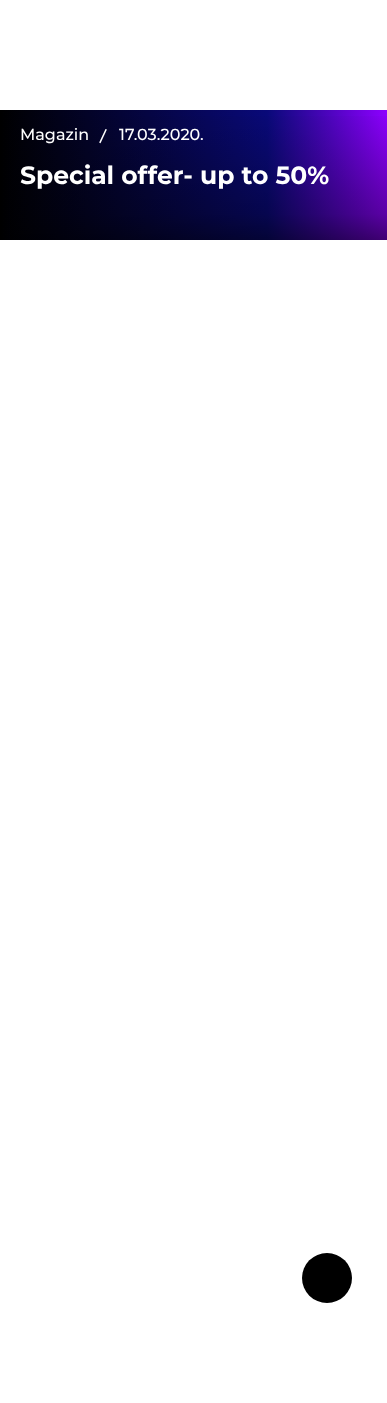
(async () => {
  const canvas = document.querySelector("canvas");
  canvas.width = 387;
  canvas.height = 1403;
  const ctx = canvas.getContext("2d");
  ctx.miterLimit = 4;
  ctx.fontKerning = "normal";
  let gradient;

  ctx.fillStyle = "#ffffff";
  ctx.fillRect(0, 0, 387, 1403);
  gradient = ctx.createLinearGradient(0, 175, 387, 175);
  gradient.addColorStop(0, "#000000");
  gradient.addColorStop(0.69, "#090979");
  gradient.addColorStop(1, "#8d00ff");
  ctx.fillStyle = gradient;
  ctx.fillRect(0, 110, 387, 130);
  gradient = ctx.createLinearGradient(194, 240, 194, 110);
  gradient.addColorStop(0, "rgba(0, 0, 0, 0.55)");
  gradient.addColorStop(0.2, "rgba(0, 0, 0, 0.35)");
  gradient.addColorStop(1, "rgba(0, 0, 0, 0)");
  ctx.fillStyle = gradient;
  ctx.fillRect(10, 116, 377, 124);
  ctx.fillStyle = "#000000";
  ctx.beginPath();
  ctx.arc(327, 1278, 25, 0, Math.PI * 2);
  ctx.fill();
  ctx.font = "500 16px Montserrat";
  ctx.fillStyle = "#ffffff";
  ctx.fillText("Magazin", 20, 140);
  ctx.save();
  ctx.translate(99, 139);
  ctx.rotate(25 * Math.PI / 180);
  ctx.fillText("|", 0, 0);
  ctx.restore();
  ctx.fillText("17.03.2020.", 119, 140);
  ctx.font = "bold 25px Montserrat";
  ctx.fillText("Special offer- up to 50%", 20, 184);
})();
